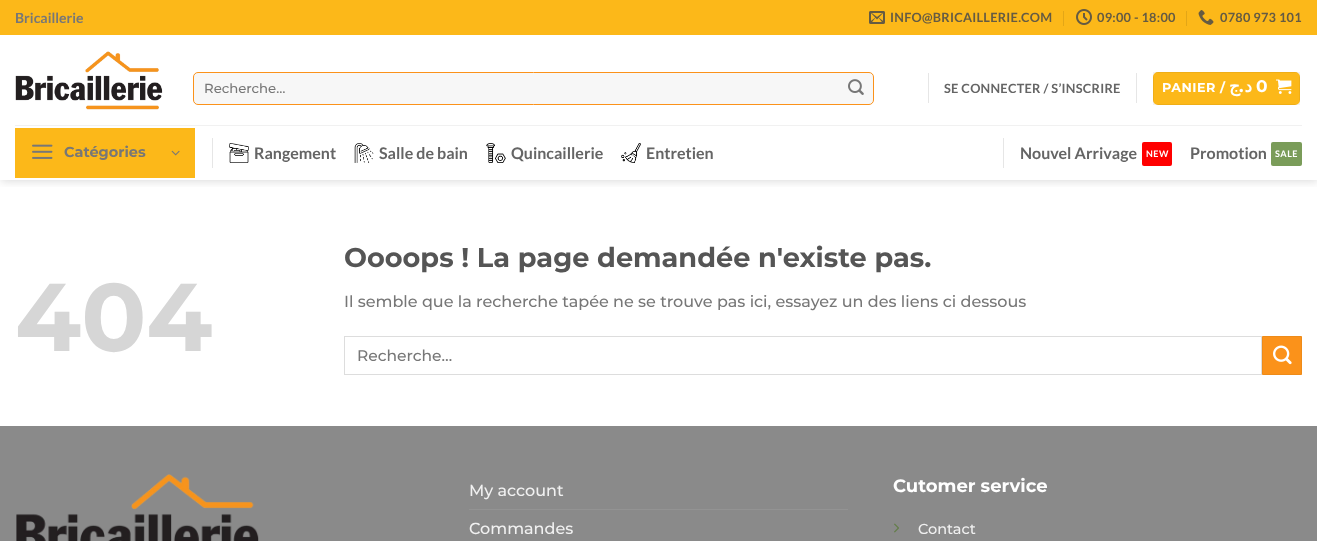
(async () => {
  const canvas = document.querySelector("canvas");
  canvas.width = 1317;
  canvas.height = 541;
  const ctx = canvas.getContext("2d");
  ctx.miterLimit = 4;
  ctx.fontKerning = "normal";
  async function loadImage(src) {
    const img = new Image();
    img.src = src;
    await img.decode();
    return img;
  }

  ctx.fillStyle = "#ffffff";
  ctx.fillRect(0, 0, 1317, 541);
  ctx.save();
  ctx.beginPath();
  ctx.rect(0, 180, 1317, 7);
  ctx.clip();
  ctx.fillStyle = "rgba(0, 0, 0, 0.15)";
  ctx.filter = "blur(5px)";
  ctx.beginPath();
  ctx.rect(1, 1, 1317, 180);
  ctx.fill();
  ctx.filter = "none";
  ctx.restore();
  ctx.fillStyle = "#fcb819";
  ctx.fillRect(0, 0, 1317, 35);
  ctx.drawImage(await loadImage("img/1.png"), 869, 11, 16, 13);
  ctx.fillStyle = "#e3a617";
  ctx.fillRect(1063, 11, 1, 15);
  ctx.drawImage(await loadImage("img/2.png"), 1076, 9, 16, 16);
  ctx.fillRect(1186, 11, 1, 15);
  ctx.drawImage(await loadImage("img/3.png"), 1198, 10, 16, 15);
  ctx.drawImage(await loadImage("img/4.png"), 15, 51, 148, 59);
  ctx.fillStyle = "#f7f7f7";
  ctx.beginPath();
  ctx.roundRect(193.5, 72.5, 680, 32, 4.5);
  ctx.fill();
  ctx.strokeStyle = "#fb921a";
  ctx.stroke();
  ctx.drawImage(await loadImage("img/5.png"), 848, 79, 16, 16);
  ctx.fillStyle = "#e6e6e6";
  ctx.fillRect(928, 73, 1, 30);
  ctx.fillRect(1136, 73, 1, 30);
  ctx.fillStyle = "#fcb819";
  ctx.beginPath();
  ctx.roundRect(1153, 72, 147, 33, 5);
  ctx.fill();
  ctx.strokeStyle = "rgba(0, 0, 0, 0.05)";
  ctx.strokeRect(1153.5, 72.5, 146, 32);
  ctx.drawImage(await loadImage("img/6.png"), 1276, 79, 16, 15);
  ctx.fillStyle = "#f1f1f1";
  ctx.fillRect(15, 125, 1287, 1);
  ctx.fillStyle = "#fcb819";
  ctx.fillRect(15, 128, 180, 50);
  ctx.drawImage(await loadImage("img/7.png"), 32, 144, 21, 15);
  ctx.drawImage(await loadImage("img/8.png"), 171, 150, 9, 6);
  ctx.fillStyle = "#e6e6e6";
  ctx.fillRect(212, 138, 1, 30);
  ctx.drawImage(await loadImage("img/9.png"), 229, 143, 20, 20);
  ctx.drawImage(await loadImage("img/10.png"), 354, 143, 20, 20);
  ctx.drawImage(await loadImage("img/11.png"), 486, 143, 20, 20);
  ctx.drawImage(await loadImage("img/12.png"), 621, 143, 20, 20);
  ctx.fillRect(1003, 138, 1, 30);
  ctx.fillStyle = "#ff0000";
  ctx.beginPath();
  ctx.roundRect(1142, 142, 30, 24, 2);
  ctx.fill();
  ctx.fillStyle = "#7a9c59";
  ctx.beginPath();
  ctx.roundRect(1271, 142, 31, 24, 2);
  ctx.fill();
  ctx.strokeStyle = "#dddddd";
  ctx.strokeRect(344.5, 336.5, 917, 38);
  ctx.fillStyle = "#fb921a";
  ctx.beginPath();
  ctx.rect(1262.5, 336.5, 39, 38);
  ctx.fill();
  ctx.strokeStyle = "#ee8b19";
  ctx.stroke();
  ctx.drawImage(await loadImage("img/13.png"), 1273, 345, 19, 20);
  ctx.fillStyle = "#8a8a8a";
  ctx.fillRect(0, 426, 1317, 115);
  ctx.drawImage(await loadImage("img/14.png"), 16, 474, 243, 67);
  ctx.fillStyle = "#939393";
  ctx.fillRect(469, 509, 379, 1);
  ctx.drawImage(await loadImage("img/15.png"), 894, 523, 5, 10);
  ctx.font = "bold 14px Lato";
  ctx.fillStyle = "#777777";
  ctx.fillText("Bricaillerie", 15, 23);
  ctx.letterSpacing = "0.25px";
  ctx.font = "bold 12.75px Lato";
  ctx.fillStyle = "#655b43";
  for (const [text, x, y] of [
    ["INFO@BRICAILLERIE.COM", 890, 22],
    ["09:00 - 18:00", 1097, 22],
    ["0780 973 101", 1220, 22],
  ]) {
    ctx.fillText(text, x, y);
  }
  ctx.letterSpacing = "0px";
  ctx.font = "500 13.25px Montserrat";
  ctx.fillStyle = "#777777";
  ctx.fillText("Recherche…", 204, 93);
  ctx.letterSpacing = "0.25px";
  ctx.font = "bold 12.75px Lato";
  ctx.fillStyle = "#656565";
  ctx.fillText("SE CONNECTER / S’INSCRIRE", 944, 93);
  ctx.letterSpacing = "0.5px";
  ctx.font = "bold 12.75px Montserrat";
  ctx.fillStyle = "#ffffff";
  ctx.fillText("PANIER /", 1162, 92);
  ctx.direction = "rtl";
  ctx.font = "bold 17px DejaVu Sans";
  ctx.fillText("ج", 1240, 92);
  ctx.font = "bold 17px Montserrat";
  ctx.fillText(".", 1244, 92);
  ctx.font = "bold 17px DejaVu Sans";
  ctx.fillText("د", 1252, 92);
  ctx.direction = "ltr";
  ctx.font = "bold 17px Montserrat";
  ctx.fillText("0", 1256, 92);
  ctx.letterSpacing = "0px";
  ctx.font = "bold 14.5px Montserrat";
  ctx.fillStyle = "#777777";
  ctx.fillText("Catégories", 64, 157);
  ctx.font = "bold 16px Lato";
  ctx.fillStyle = "#656565";
  for (const [text, x, y] of [
    ["Rangement", 254, 159],
    ["Salle de bain", 379, 159],
    ["Quincaillerie", 511, 159],
    ["Entretien", 646, 159],
    ["Nouvel Arrivage", 1020, 159],
  ]) {
    ctx.fillText(text, x, y);
  }
  ctx.letterSpacing = "0.5px";
  ctx.font = "bold 9px Lato";
  ctx.fillStyle = "#ffffff";
  ctx.fillText("NEW", 1146, 157);
  ctx.letterSpacing = "0px";
  ctx.font = "bold 16px Lato";
  ctx.fillStyle = "#656565";
  ctx.fillText("Promotion", 1190, 159);
  ctx.letterSpacing = "0.5px";
  ctx.font = "bold 9px Lato";
  ctx.fillStyle = "#ffffff";
  ctx.fillText("SALE", 1275, 157);
  ctx.letterSpacing = "0px";
  ctx.font = "bold 96px Montserrat";
  ctx.fillStyle = "#d6d6d6";
  ctx.fillText("404", 15, 351);
  ctx.font = "bold 27.2px Montserrat";
  ctx.fillStyle = "#555555";
  ctx.fillText("Oooops ! La page demandée n'existe pas.", 344, 267);
  ctx.font = "500 16px Montserrat";
  ctx.fillStyle = "#777777";
  ctx.fillText("Il semble que la recherche tapée ne se trouve pas ici, essayez un des liens ci dessous", 344, 307);
  ctx.font = "500 15.5px Montserrat";
  ctx.fillText("Recherche…", 357, 361);
  ctx.font = "500 16px Montserrat";
  ctx.fillStyle = "#f1f1f1";
  ctx.fillText("My account", 469, 496);
  ctx.fillText("Commandes", 469, 534);
  ctx.font = "bold 18px Montserrat";
  ctx.fillStyle = "#ffffff";
  ctx.fillText("Cutomer service", 893, 492);
  ctx.font = "500 14.5px Montserrat";
  ctx.fillStyle = "#f1f1f1";
  ctx.fillText("Contact", 918, 534);
})();
